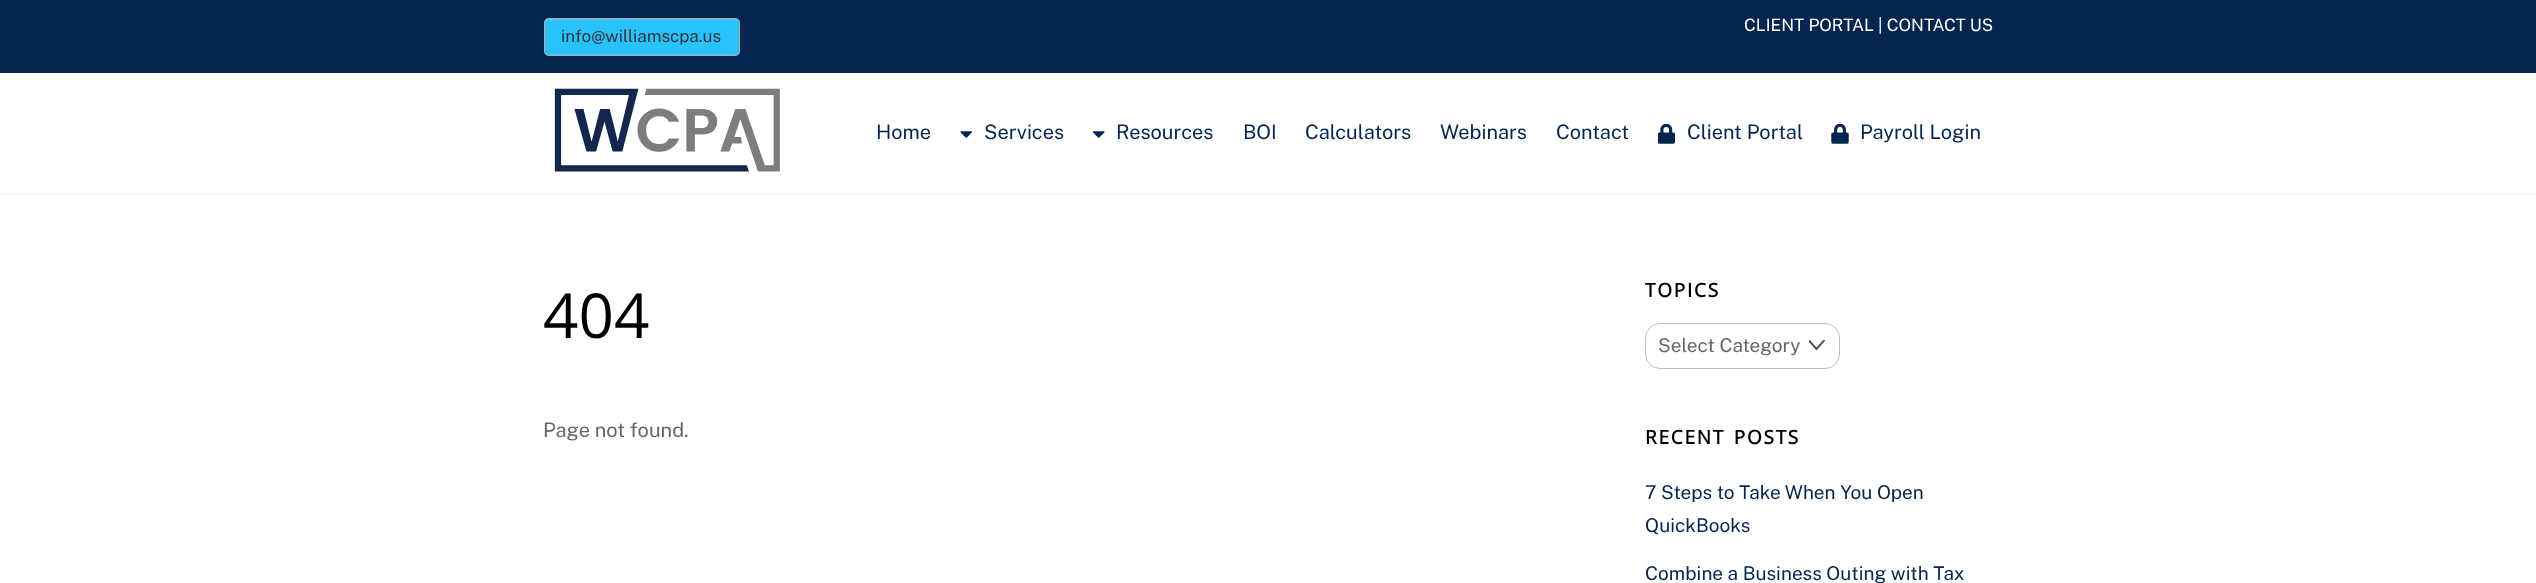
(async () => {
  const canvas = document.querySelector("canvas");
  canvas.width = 2536;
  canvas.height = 583;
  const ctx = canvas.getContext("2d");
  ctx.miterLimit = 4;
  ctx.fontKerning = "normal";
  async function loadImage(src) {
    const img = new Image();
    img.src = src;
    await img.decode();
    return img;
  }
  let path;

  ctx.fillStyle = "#ffffff";
  ctx.fillRect(0, 0, 2536, 583);
  ctx.fillStyle = "#f2f2f2";
  ctx.fillRect(0, 194, 2536, 1);
  ctx.fillStyle = "#03254e";
  ctx.fillRect(0, 0, 2536, 73);
  ctx.fillStyle = "#03234a";
  path = new Path2D("M544 53C544 56 546 58 549 58H735C738 58 740 56 740 53V51C740 54 738 56 735 56H549C547 56 545 55 544 53Z");
  ctx.fill(path);
  ctx.fillStyle = "#28c2ff";
  ctx.beginPath();
  ctx.roundRect(544, 18, 196, 38, 5);
  ctx.fill();
  ctx.fillStyle = "#3ec8ff";
  path = new Path2D("M545 50V51C545 53 547 55 549 55H735C737 55 739 53 739 51V50C739 52 737 54 735 54H549C547 54 545 52 545 50Z");
  ctx.fill(path);
  ctx.fillStyle = "#53ceff";
  path = new Path2D("M549 20H735C737 20 739 22 739 24V23C739 21 737 19 735 19H549C547 19 545 21 545 23V24C545 22 547 20 549 20Z");
  ctx.fill(path);
  ctx.beginPath();
  ctx.roundRect(544.5, 18.5, 195, 37, 4.5);
  ctx.strokeStyle = "#aaaaaa";
  ctx.stroke();
  ctx.drawImage(await loadImage("img/1.png"), 554, 88, 226, 84);
  ctx.drawImage(await loadImage("img/2.png"), 960, 131, 12, 7);
  ctx.drawImage(await loadImage("img/3.png"), 1093, 131, 12, 7);
  ctx.drawImage(await loadImage("img/4.png"), 1658, 124, 17, 20);
  ctx.drawImage(await loadImage("img/5.png"), 1831, 124, 18, 20);
  ctx.save();
  ctx.beginPath();
  ctx.rect(1809, 340, 16, 16);
  ctx.clip();
  path = new Path2D("M1809 340.5L1816.5 349L1824 340.5");
  ctx.strokeStyle = "#535353";
  ctx.lineWidth = 1.9;
  ctx.lineCap = "round";
  ctx.stroke(path);
  ctx.restore();
  ctx.beginPath();
  ctx.roundRect(1645.5, 323.5, 194, 45, 14.5);
  ctx.strokeStyle = "#bfbfbf";
  ctx.stroke();
  ctx.font = "17.1px Public Sans";
  ctx.fillStyle = "#ffffff";
  ctx.fillText("CLIENT PORTAL | CONTACT US", 1744, 31);
  ctx.fillStyle = "#333333";
  ctx.fillText("info@williamscpa.us", 561, 42);
  ctx.font = "20px Public Sans";
  ctx.fillStyle = "#03254e";
  for (const [text, x, y] of [
    ["Home", 876, 139],
    ["Services", 984, 139],
    ["Resources", 1116, 139],
    ["BOI", 1243, 139],
    ["Calculators", 1305, 139],
    ["Webinars", 1440, 139],
    ["Contact", 1556, 139],
    ["Client Portal", 1687, 139],
    ["Payroll Login", 1860, 139],
  ]) {
    ctx.fillText(text, x, y);
  }
  ctx.font = "62px Open Sans";
  ctx.fillStyle = "#000000";
  ctx.fillText("404", 543, 338);
  ctx.font = "20px Public Sans";
  ctx.fillStyle = "#666666";
  ctx.fillText("Page not found.", 543, 437);
  ctx.letterSpacing = "1.75px";
  ctx.font = "bold 19px Open Sans";
  ctx.fillStyle = "#000000";
  ctx.fillText("TOPICS", 1645, 297);
  ctx.letterSpacing = "0px";
  ctx.font = "19px Public Sans";
  ctx.fillStyle = "#666666";
  ctx.fillText("Select Category", 1658, 352);
  ctx.letterSpacing = "1.75px";
  ctx.wordSpacing = "2px";
  ctx.font = "bold 19px Open Sans";
  ctx.fillStyle = "#000000";
  ctx.fillText("RECENT POSTS", 1645, 444);
  ctx.letterSpacing = "0px";
  ctx.wordSpacing = "0px";
  ctx.font = "19px Public Sans";
  ctx.fillStyle = "#03254e";
  for (const [text, x, y] of [
    ["7 Steps to Take When You Open", 1645, 499],
    ["QuickBooks", 1645, 532],
    ["Combine a Business Outing with Tax", 1645, 580],
  ]) {
    ctx.fillText(text, x, y);
  }
})();
